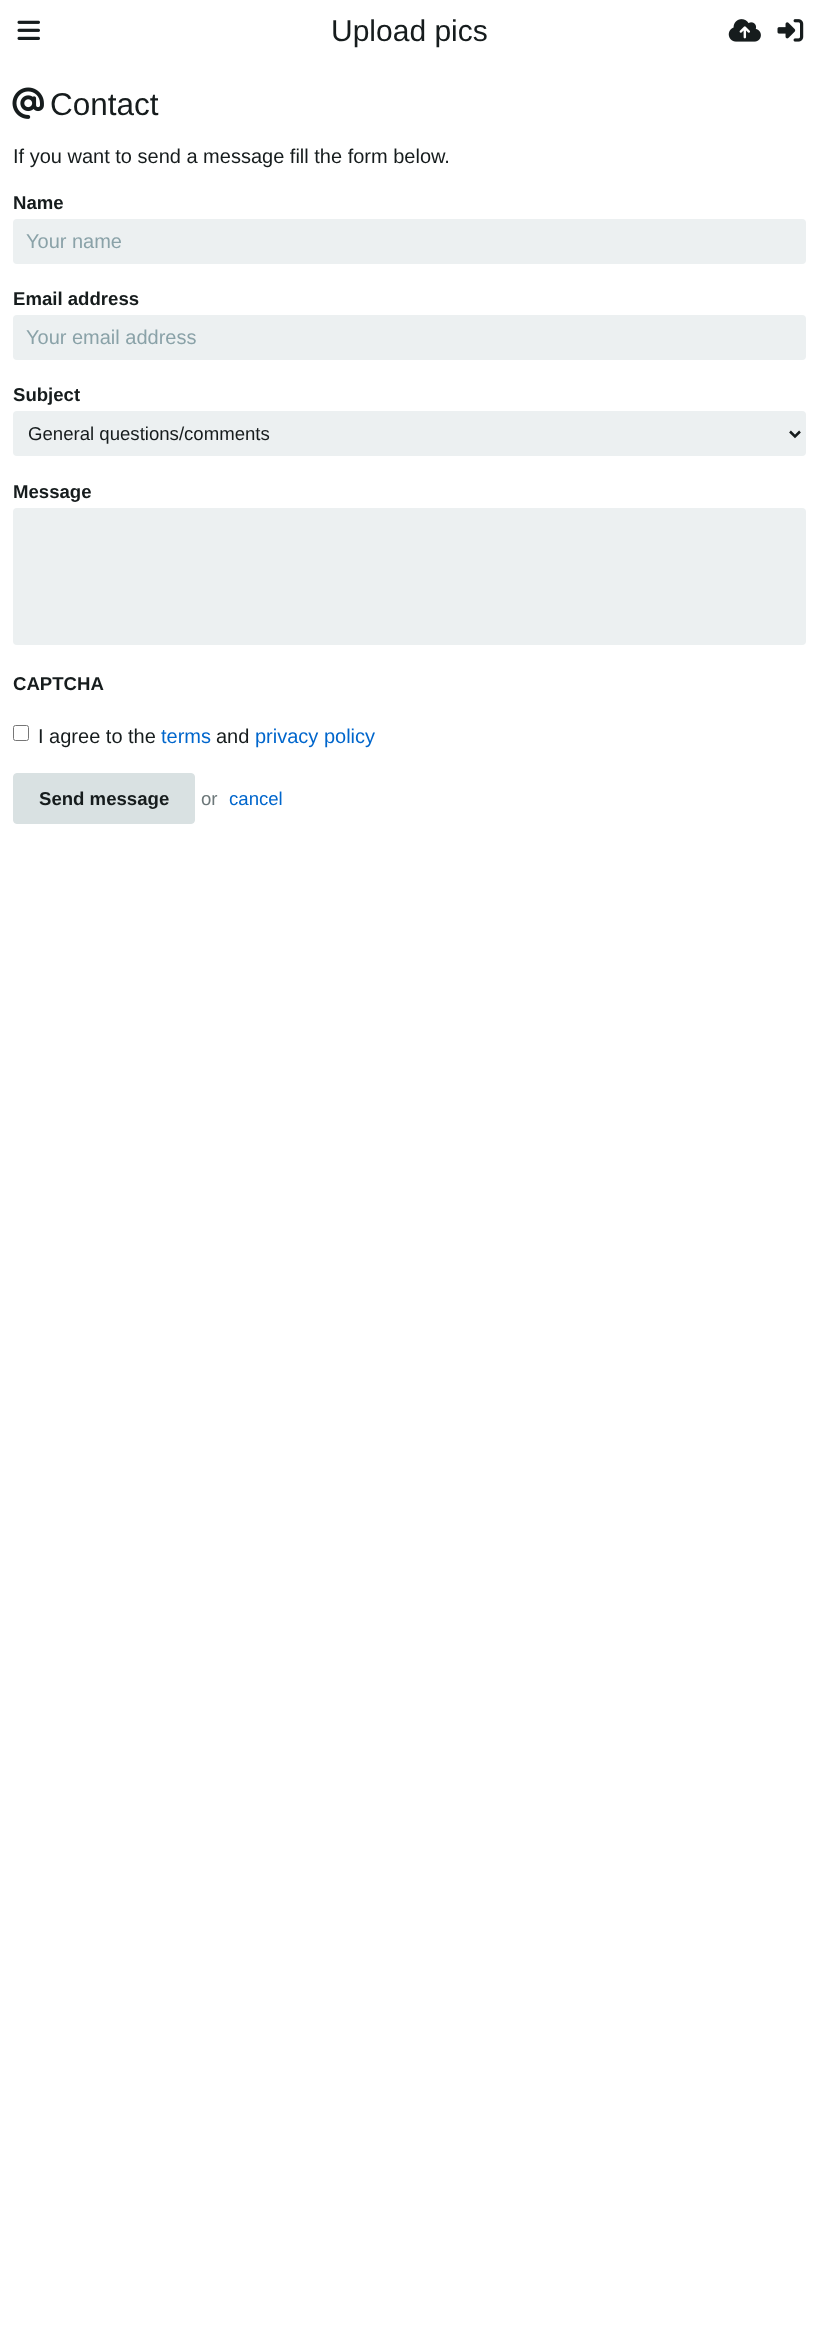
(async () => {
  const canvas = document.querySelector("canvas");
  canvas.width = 818;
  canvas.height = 2325;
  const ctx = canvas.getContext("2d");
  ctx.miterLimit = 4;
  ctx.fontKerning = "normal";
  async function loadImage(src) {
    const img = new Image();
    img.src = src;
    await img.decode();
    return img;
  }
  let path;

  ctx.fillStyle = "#ffffff";
  ctx.fillRect(0, 0, 818, 2325);
  ctx.drawImage(await loadImage("img/1.png"), 17, 20, 23, 20);
  ctx.drawImage(await loadImage("img/2.png"), 728, 19, 33, 23);
  ctx.drawImage(await loadImage("img/3.png"), 777, 19, 27, 23);
  ctx.drawImage(await loadImage("img/4.png"), 12, 87, 32, 32);
  ctx.fillStyle = "#ecf0f1";
  ctx.beginPath();
  ctx.roundRect(13, 219, 793, 45, 4);
  ctx.fill();
  ctx.beginPath();
  ctx.roundRect(13, 315, 793, 45, 4);
  ctx.fill();
  ctx.beginPath();
  ctx.roundRect(13, 411, 793, 45, 4);
  ctx.fill();
  path = new Path2D("M790 431.5L795 436.5L800 431.5");
  ctx.strokeStyle = "#161c1d";
  ctx.lineWidth = 2.5;
  ctx.stroke(path);
  ctx.beginPath();
  ctx.roundRect(13, 508, 793, 137, 4);
  ctx.fill();
  ctx.beginPath();
  ctx.roundRect(13.5, 725.5, 15, 15, 2);
  ctx.strokeStyle = "#767676";
  ctx.lineWidth = 1;
  ctx.stroke();
  ctx.fillStyle = "#d9e1e2";
  ctx.beginPath();
  ctx.roundRect(13.5, 773.5, 181, 50, 3.5);
  ctx.fill();
  ctx.strokeStyle = "#d9e1e2";
  ctx.stroke();
  ctx.font = "30px Liberation Sans";
  ctx.fillStyle = "#161c1d";
  ctx.fillText("Upload pics", 331, 41);
  ctx.font = "31.5px Liberation Sans";
  ctx.fillText("Contact", 50, 115);
  ctx.font = "20px Liberation Sans";
  ctx.fillText("If you want to send a message fill the form below.", 13, 163);
  ctx.font = "bold 18.6px Liberation Sans";
  ctx.fillText("Name", 13, 209);
  ctx.font = "20px Liberation Sans";
  ctx.fillStyle = "#8aa2a8";
  ctx.fillText("Your name", 26, 248);
  ctx.font = "bold 18.6px Liberation Sans";
  ctx.fillStyle = "#161c1d";
  ctx.fillText("Email address", 13, 305);
  ctx.font = "20px Liberation Sans";
  ctx.fillStyle = "#8aa2a8";
  ctx.fillText("Your email address", 26, 344);
  ctx.font = "bold 18.6px Liberation Sans";
  ctx.fillStyle = "#161c1d";
  ctx.fillText("Subject", 13, 401);
  ctx.font = "18.6px Liberation Sans";
  ctx.fillText("General questions/comments", 28, 440);
  ctx.font = "bold 18.6px Liberation Sans";
  ctx.fillText("Message", 13, 498);
  ctx.fillText("CAPTCHA", 13, 690);
  ctx.font = "20px Liberation Sans";
  ctx.fillText("I agree to the", 38, 743);
  ctx.fillStyle = "#0066cc";
  ctx.fillText("terms", 161, 743);
  ctx.fillStyle = "#161c1d";
  ctx.fillText("and", 216, 743);
  ctx.fillStyle = "#0066cc";
  ctx.fillText("privacy policy", 255, 743);
  ctx.font = "bold 18.6px Liberation Sans";
  ctx.fillStyle = "#161c1d";
  ctx.fillText("Send message", 39, 805);
  ctx.font = "18.6px Liberation Sans";
  ctx.fillStyle = "#6c7779";
  ctx.fillText("or", 201, 805);
  ctx.fillStyle = "#0066cc";
  ctx.fillText("cancel", 229, 805);
})();
